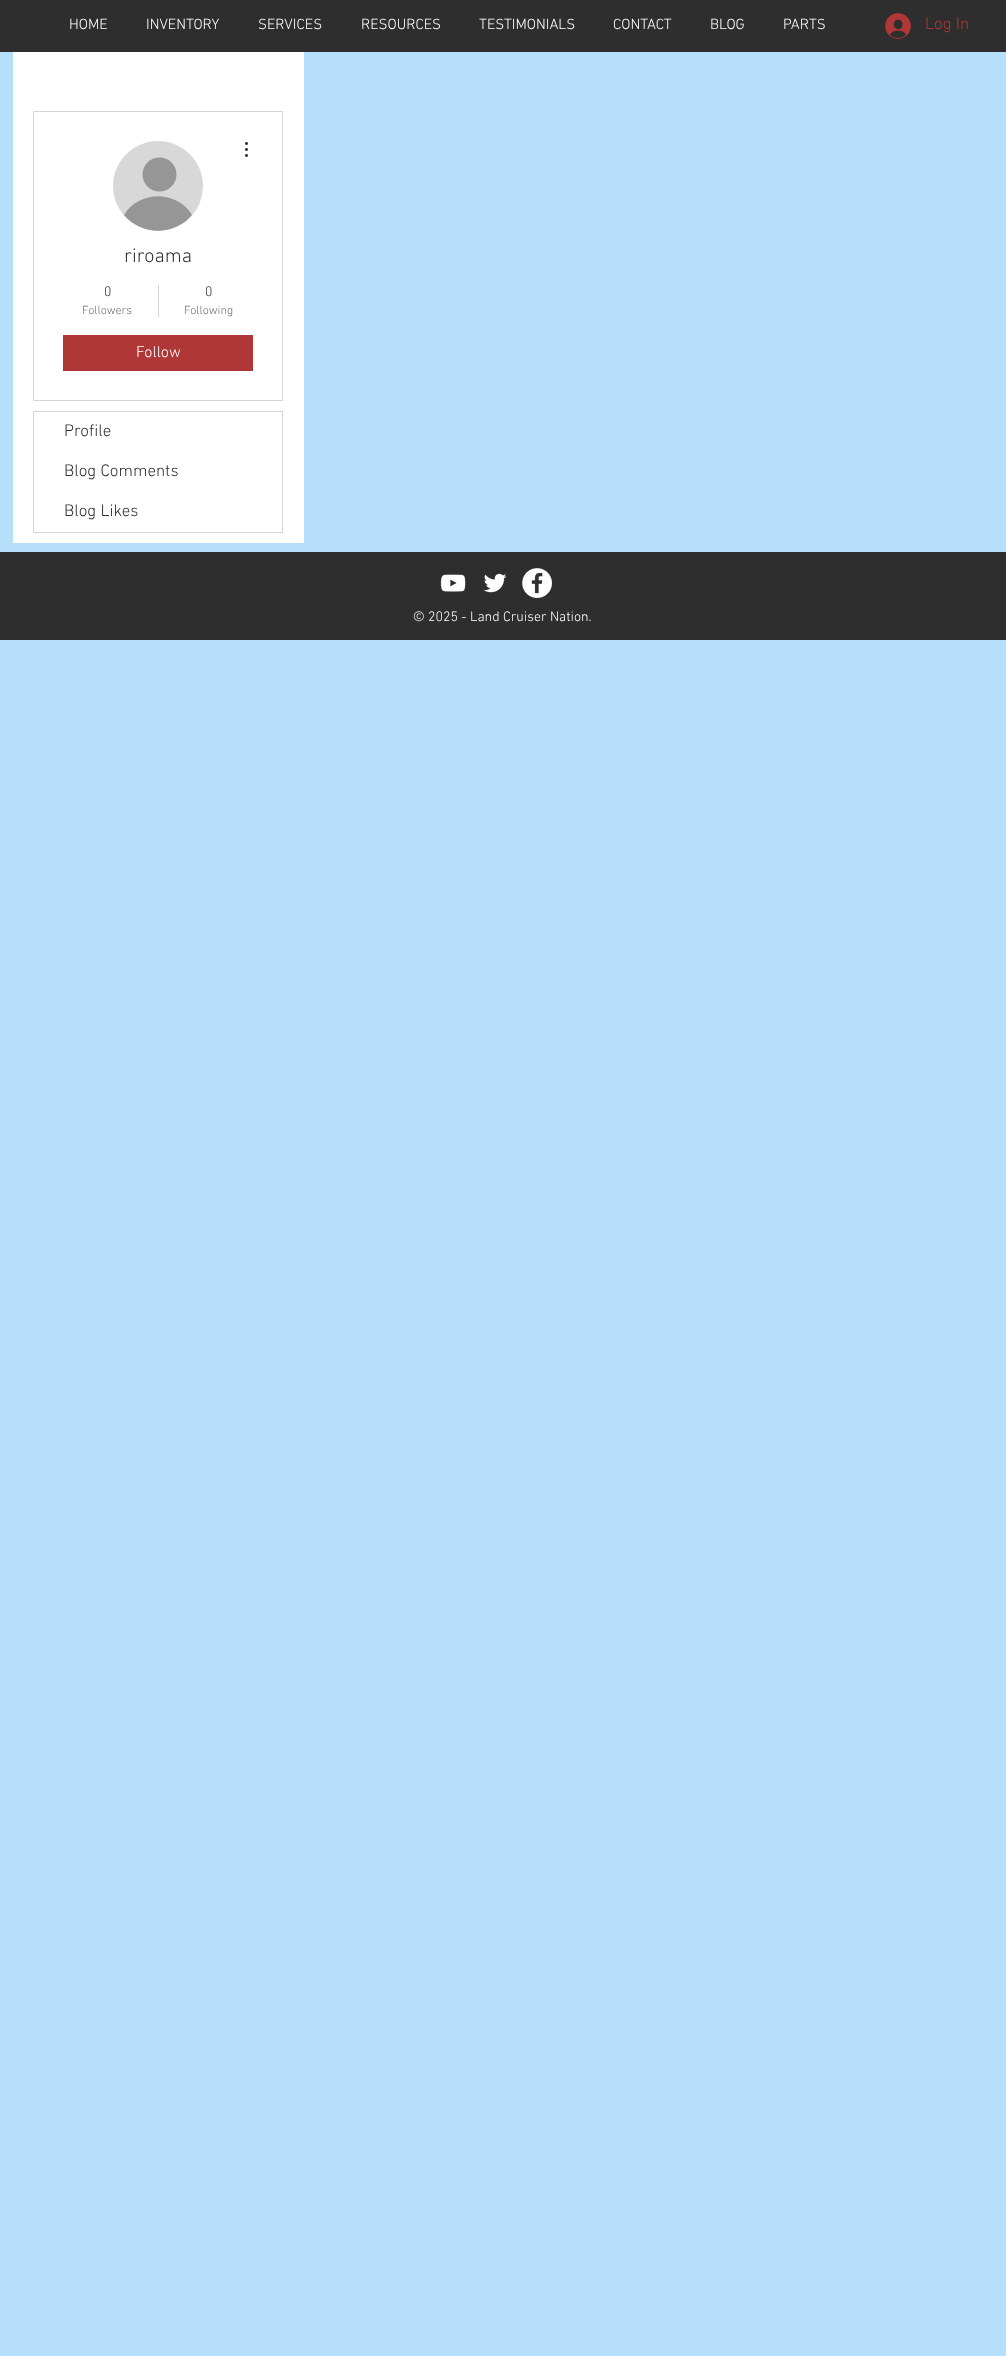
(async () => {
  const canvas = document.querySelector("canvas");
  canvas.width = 1006;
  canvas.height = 2356;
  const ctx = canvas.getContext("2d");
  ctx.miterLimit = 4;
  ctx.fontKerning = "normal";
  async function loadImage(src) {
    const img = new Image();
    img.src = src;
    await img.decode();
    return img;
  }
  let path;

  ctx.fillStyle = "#b6dffc";
  ctx.fillRect(0, 0, 1006, 2356);
  ctx.fillStyle = "#2f2e2e";
  ctx.fillRect(0, 0, 1006, 52);
  ctx.drawImage(await loadImage("img/1.png"), 885, 13, 26, 26);
  ctx.fillStyle = "#ffffff";
  ctx.fillRect(13, 52, 291, 491);
  ctx.strokeStyle = "#d5d5d5";
  ctx.strokeRect(33.5, 111.5, 249, 289);
  ctx.fillStyle = "#d8d8d8";
  ctx.beginPath();
  ctx.arc(158, 186, 45, 0, Math.PI * 2);
  ctx.fill();
  ctx.fillStyle = "#969696";
  ctx.beginPath();
  ctx.arc(159.5, 174.5, 17, 0, Math.PI * 2);
  ctx.fill();
  path = new Path2D("M192 215C174 236 142 236 124 215C139 190 177 190 192 215Z");
  ctx.fill(path);
  ctx.drawImage(await loadImage("img/2.png"), 245, 142, 3, 15);
  ctx.fillStyle = "#d5d5d5";
  ctx.fillRect(158, 285, 1, 32);
  ctx.fillStyle = "#b03737";
  ctx.fillRect(63, 335, 190, 36);
  ctx.strokeRect(33.5, 411.5, 249, 121);
  ctx.fillStyle = "#2f2e2e";
  ctx.fillRect(0, 552, 1006, 88);
  ctx.drawImage(await loadImage("img/3.png"), 440, 574, 26, 18);
  ctx.drawImage(await loadImage("img/4.png"), 484, 573, 23, 20);
  ctx.drawImage(await loadImage("img/5.png"), 522, 568, 30, 30);
  ctx.font = "300 15px 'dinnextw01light'";
  ctx.fillStyle = "#ffffff";
  for (const [text, x, y] of [
    ["HOME", 69, 29],
    ["INVENTORY", 146, 29],
    ["SERVICES", 258, 29],
    ["RESOURCES", 361, 29],
    ["TESTIMONIALS", 479, 29],
    ["CONTACT", 613, 29],
    ["BLOG", 710, 29],
    ["PARTS", 783, 29],
  ]) {
    ctx.fillText(text, x, y);
  }
  ctx.font = "300 17px 'dinnextw01light'";
  ctx.fillStyle = "#b03737";
  ctx.fillText("Log In", 925, 29);
  ctx.font = "300 20px 'dinnextw01light'";
  ctx.fillStyle = "#2f2e2e";
  ctx.fillText("riroama", 124, 262);
  ctx.font = "300 14px 'dinnextw01light'";
  ctx.fillText("0", 104, 296);
  ctx.font = "300 12px 'dinnextw01light'";
  ctx.fillStyle = "#6d6d6d";
  ctx.fillText("Followers", 82, 314);
  ctx.font = "300 14px 'dinnextw01light'";
  ctx.fillStyle = "#2f2e2e";
  ctx.fillText("0", 205, 296);
  ctx.font = "300 12px 'dinnextw01light'";
  ctx.fillStyle = "#6d6d6d";
  ctx.fillText("Following", 184, 314);
  ctx.font = "300 16px 'dinnextw01light'";
  ctx.fillStyle = "#ffffff";
  ctx.fillText("Follow", 136, 357);
  ctx.font = "300 17px 'dinnextw01light'";
  ctx.fillStyle = "#2f2e2e";
  for (const [text, x, y] of [
    ["Profile", 64, 436],
    ["Blog Comments", 64, 476],
    ["Blog Likes", 64, 516],
  ]) {
    ctx.fillText(text, x, y);
  }
  ctx.font = "300 14px 'dinnextw01light'";
  ctx.fillStyle = "#ffffff";
  ctx.fillText("© 2025 - Land Cruiser Nation.", 413, 621);
})();
